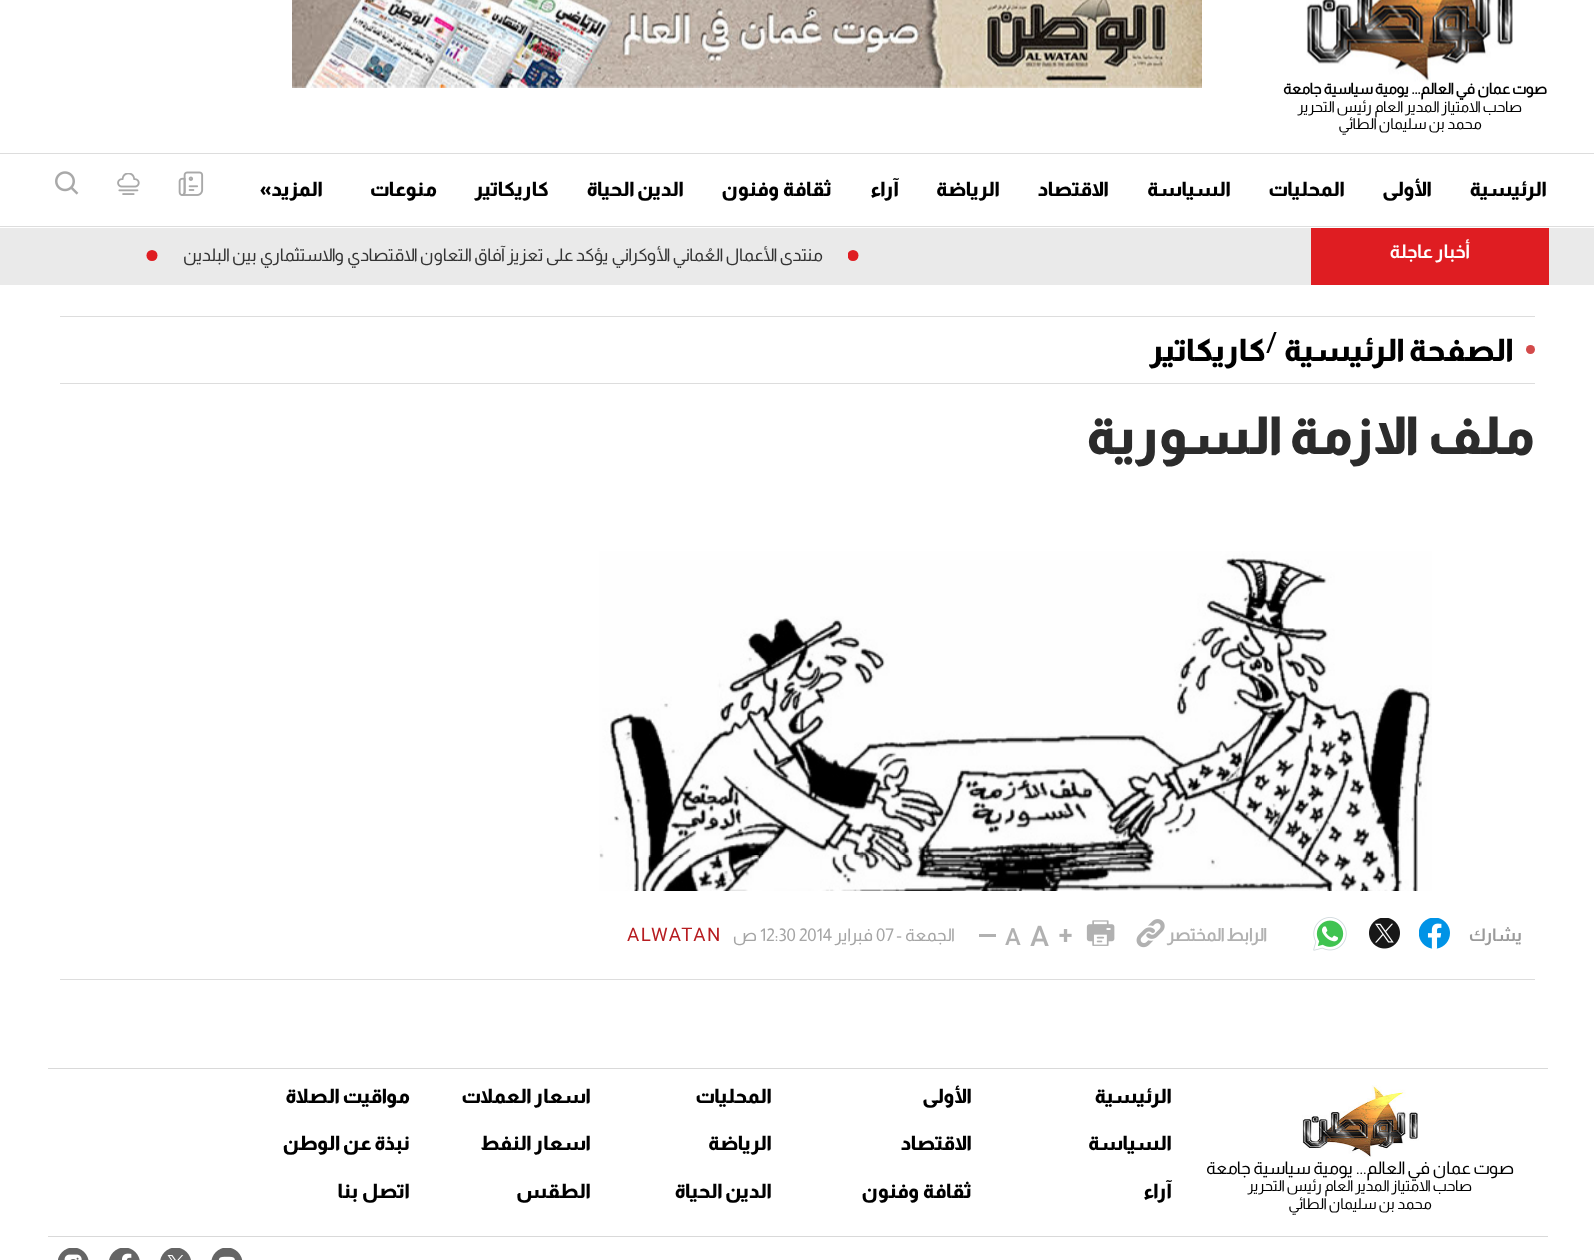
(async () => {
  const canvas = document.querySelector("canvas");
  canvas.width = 1594;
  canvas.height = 1260;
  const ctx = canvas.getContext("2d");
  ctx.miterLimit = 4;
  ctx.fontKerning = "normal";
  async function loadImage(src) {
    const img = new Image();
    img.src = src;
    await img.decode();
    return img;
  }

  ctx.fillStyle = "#ffffff";
  ctx.fillRect(0, 0, 1594, 1260);
  ctx.drawImage(await loadImage("img/1.png"), 292, 0, 910, 88);
  ctx.drawImage(await loadImage("img/2.png"), 1306, 0, 207, 82);
  ctx.fillStyle = "#dddddd";
  ctx.fillRect(0, 153, 1594, 1);
  ctx.fillRect(0, 226, 1594, 1);
  ctx.drawImage(await loadImage("img/3.png"), 178, 171, 26, 25);
  ctx.drawImage(await loadImage("img/4.png"), 117, 173, 23, 22);
  ctx.drawImage(await loadImage("img/5.png"), 55, 171, 24, 24);
  ctx.fillStyle = "#eaeaea";
  ctx.fillRect(0, 228, 1594, 57);
  ctx.fillStyle = "#df1d22";
  ctx.fillRect(1311, 228, 238, 57);
  ctx.save();
  ctx.beginPath();
  ctx.rect(848, 250, 11, 11);
  ctx.clip();
  ctx.beginPath();
  ctx.arc(853, 255.5, 5.5, 0, Math.PI * 2);
  ctx.fill();
  ctx.restore();
  ctx.beginPath();
  ctx.arc(152, 255.5, 5.5, 0, Math.PI * 2);
  ctx.fill();
  ctx.fillStyle = "#dddddd";
  ctx.fillRect(60, 316, 1475, 1);
  ctx.fillRect(60, 383, 1475, 1);
  ctx.fillStyle = "#d34a4a";
  ctx.beginPath();
  ctx.arc(1530.5, 349.5, 4.5, 0, Math.PI * 2);
  ctx.fill();
  ctx.drawImage(await loadImage("img/6.png"), 599, 551, 833, 340);
  ctx.fillStyle = "#dddddd";
  ctx.fillRect(60, 979, 1475, 1);
  ctx.drawImage(await loadImage("img/7.png"), 1419, 918, 31, 31);
  ctx.drawImage(await loadImage("img/8.png"), 1369, 918, 31, 31);
  ctx.drawImage(await loadImage("img/9.png"), 1313, 917, 34, 34);
  ctx.drawImage(await loadImage("img/10.png"), 1136, 919, 29, 29);
  ctx.drawImage(await loadImage("img/11.png"), 1086, 920, 29, 26);
  ctx.drawImage(await loadImage("img/12.png"), 1059, 929, 13, 13);
  ctx.drawImage(await loadImage("img/13.png"), 1030, 925, 19, 21);
  ctx.drawImage(await loadImage("img/14.png"), 1005, 928, 16, 17);
  for (const [x, y, w, h, color] of [
    [979, 934, 17, 3, "#b1b1b1"],
    [48, 1068, 1500, 1, "#d9d9d9"],
    [48, 1236, 1500, 1, "#d9d9d9"],
  ]) {
    ctx.fillStyle = color;
    ctx.fillRect(x, y, w, h);
  }
  ctx.drawImage(await loadImage("img/15.png"), 1302, 1085, 117, 72);
  ctx.drawImage(await loadImage("img/16.png"), 211, 1248, 32, 12);
  ctx.drawImage(await loadImage("img/17.png"), 160, 1248, 31, 12);
  ctx.drawImage(await loadImage("img/18.png"), 109, 1248, 31, 12);
  ctx.drawImage(await loadImage("img/19.png"), 58, 1248, 31, 12);
  ctx.direction = "rtl";
  ctx.font = "bold 15px 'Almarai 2'";
  ctx.fillStyle = "#000000";
  ctx.fillText("صوت عمان في العالم... يومية سياسية جامعة", 1547, 94);
  ctx.font = "15px Almarai";
  ctx.fillText("صاحب الامتياز المدير العام رئيس التحرير", 1522, 112);
  ctx.fillText("محمد بن سليمان الطائي", 1482, 129);
  ctx.font = "800 20px Almarai";
  for (const [text, x, y] of [
    ["الرئيسية", 1547, 196],
    ["الأولى", 1432, 196],
    ["المحليات", 1345, 196],
    ["السياسة", 1231, 196],
    ["الاقتصاد", 1109, 196],
    ["الرياضة", 1000, 196],
    ["آراء", 899, 196],
    ["ثقافة وفنون", 832, 196],
    ["الدين الحياة", 684, 196],
    ["كاريكاتير", 549, 196],
    ["منوعات", 437, 196],
    ["المزيد»", 323, 196],
  ]) {
    ctx.fillText(text, x, y);
  }
  ctx.font = "bold 18.75px Almarai";
  ctx.fillStyle = "#ffffff";
  ctx.fillText("أخبار عاجلة", 1470, 258);
  ctx.font = "17.5px Almarai";
  ctx.fillStyle = "#333333";
  ctx.fillText("منتدى الأعمال العُماني الأوكراني يؤكد على تعزيز آفاق التعاون الاقتصادي والاستثماري بين البلدين", 823, 261);
  ctx.font = "800 31.25px Almarai";
  ctx.fillStyle = "#000000";
  ctx.fillText("الصفحة الرئيسية", 1514, 361);
  ctx.direction = "ltr";
  ctx.font = "31.25px Almarai";
  ctx.fillText("/", 1266, 353);
  ctx.direction = "rtl";
  ctx.font = "800 31.25px Almarai";
  ctx.fillText("كاريكاتير", 1266, 361);
  ctx.font = "800 52.5px Almarai";
  ctx.fillStyle = "#2b2b2b";
  ctx.fillText("ملف الازمة السورية", 1535, 454);
  ctx.font = "bold 17.5px Almarai";
  ctx.fillStyle = "#9b9b9b";
  ctx.fillText("يشارك", 1522, 941);
  ctx.font = "bold 17.5px 'Almarai 2'";
  ctx.fillStyle = "#b1b1b1";
  ctx.fillText("الرابط المختصر", 1267, 941);
  ctx.font = "17.5px Almarai";
  ctx.fillStyle = "#a5a5a5";
  ctx.fillText("الجمعة -", 955, 941);
  ctx.direction = "ltr";
  ctx.fillText("07", 876, 941);
  ctx.direction = "rtl";
  ctx.fillText("فبراير", 873, 941);
  ctx.direction = "ltr";
  ctx.fillText("12:30 2014", 760, 941);
  ctx.direction = "rtl";
  ctx.fillText("ص", 757, 941);
  ctx.letterSpacing = "1.5px";
  ctx.direction = "ltr";
  ctx.font = "18.75px Roboto";
  ctx.fillStyle = "#b71d21";
  ctx.fillText("ALWATAN", 627, 941);
  ctx.letterSpacing = "0px";
  ctx.direction = "rtl";
  ctx.font = "17.5px Almarai";
  ctx.fillStyle = "#000000";
  ctx.fillText("صوت عمان في العالم... يومية سياسية جامعة", 1514, 1174);
  ctx.font = "15px Almarai";
  ctx.fillText("صاحب الامتياز المدير العام رئيس التحرير", 1472, 1191);
  ctx.fillText("محمد بن سليمان الطائي", 1432, 1209);
  ctx.font = "800 20px Almarai";
  for (const [text, x, y] of [
    ["الرئيسية", 1172, 1103],
    ["السياسة", 1172, 1150],
    ["آراء", 1172, 1198],
    ["الأولى", 972, 1103],
    ["الاقتصاد", 972, 1150],
    ["ثقافة وفنون", 972, 1198],
    ["المحليات", 772, 1103],
    ["الرياضة", 772, 1150],
    ["الدين الحياة", 772, 1198],
    ["اسعار العملات", 591, 1103],
    ["اسعار النفط", 591, 1150],
    ["الطقس", 591, 1198],
    ["مواقيت الصلاة", 410, 1103],
    ["نبذة عن الوطن", 410, 1150],
    ["اتصل بنا", 410, 1198],
  ]) {
    ctx.fillText(text, x, y);
  }
})();
